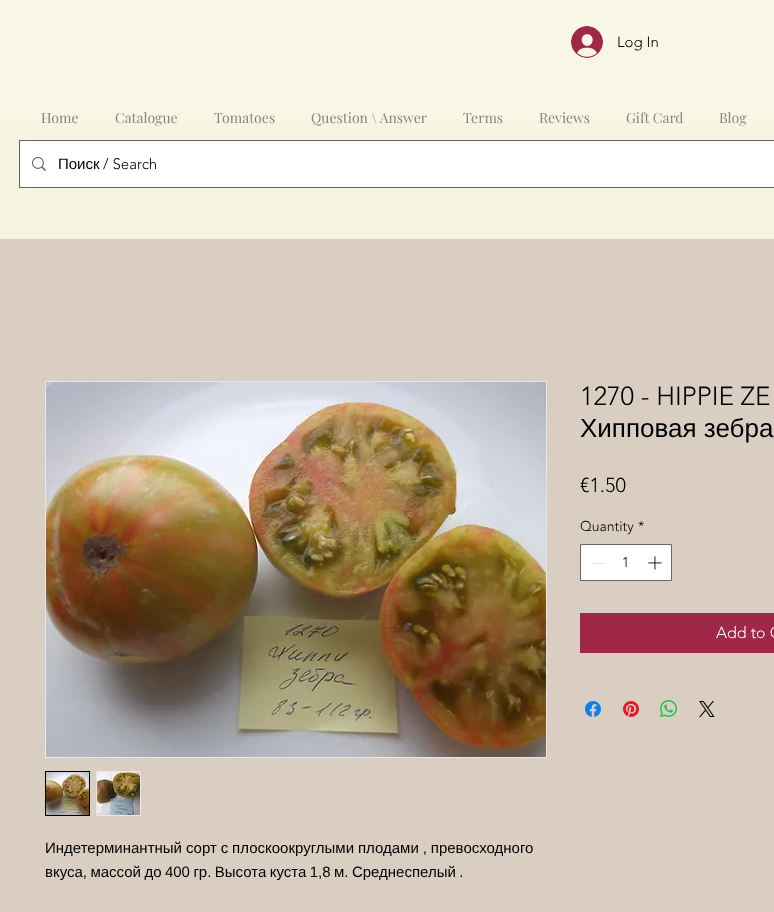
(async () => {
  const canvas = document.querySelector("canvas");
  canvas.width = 774;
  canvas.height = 912;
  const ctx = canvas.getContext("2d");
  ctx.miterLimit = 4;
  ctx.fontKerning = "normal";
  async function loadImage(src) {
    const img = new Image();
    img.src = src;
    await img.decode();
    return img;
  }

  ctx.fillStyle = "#dacec2";
  ctx.fillRect(0, 0, 774, 912);
  ctx.fillStyle = "#f7f5e1";
  ctx.fillRect(0, 0, 774, 239);
  ctx.drawImage(await loadImage("img/2.png"), 0, 0, 774, 122);
  ctx.drawImage(await loadImage("img/1.png"), 571, 26, 32, 32);
  ctx.strokeStyle = "#63625a";
  ctx.strokeRect(19.5, 140.5, 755, 47);
  ctx.fillStyle = "#ffffff";
  ctx.fillRect(20, 141, 754, 46);
  ctx.drawImage(await loadImage("img/3.png"), 32, 157, 14, 14);
  ctx.beginPath();
  ctx.rect(580.5, 544.5, 91, 36);
  ctx.fill();
  ctx.strokeStyle = "#666666";
  ctx.stroke();
  ctx.fillStyle = "#e3e3e3";
  ctx.fillRect(592, 563, 13, 1);
  ctx.drawImage(await loadImage("img/4.png"), 648, 556, 14, 14);
  ctx.fillStyle = "#9f2747";
  ctx.fillRect(580, 613, 194, 40);
  ctx.drawImage(await loadImage("img/5.png"), 585, 701, 16, 16);
  ctx.drawImage(await loadImage("img/6.png"), 623, 701, 16, 16);
  ctx.drawImage(await loadImage("img/7.png"), 660, 700, 17, 17);
  ctx.drawImage(await loadImage("img/8.png"), 699, 701, 16, 16);
  ctx.strokeStyle = "#e8e6e6";
  ctx.strokeRect(45.5, 381.5, 501, 376);
  ctx.drawImage(await loadImage("img/9.png"), 46, 382, 500, 375);
  ctx.strokeStyle = "#000000";
  ctx.strokeRect(45.5, 771.5, 44, 44);
  ctx.drawImage(await loadImage("img/10.png"), 46, 772, 43, 43);
  ctx.fillStyle = "#e8e6e6";
  ctx.fillRect(96, 771, 45, 45);
  ctx.drawImage(await loadImage("img/11.png"), 97, 772, 43, 43);
  ctx.font = "300 15px 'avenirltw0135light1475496'";
  ctx.fillStyle = "#000000";
  ctx.fillText("Log In", 617, 47);
  ctx.font = "14px Playfair Display";
  ctx.fillStyle = "#858585";
  for (const [text, x, y] of [
    ["Home", 41, 123],
    ["Catalogue", 115, 123],
    ["Tomatoes", 214, 123],
    ["Question \\ Answer", 311, 123],
    ["Terms", 463, 123],
    ["Reviews", 539, 123],
    ["Gift Card", 626, 123],
    ["Blog", 719, 123],
  ]) {
    ctx.fillText(text, x, y);
  }
  ctx.font = "15px Liberation Sans";
  ctx.fillStyle = "#000000";
  ctx.fillText("Поиск", 58, 169);
  ctx.font = "300 15px 'avenirltw0135light1475496'";
  ctx.fillText("/ Search", 103, 169);
  ctx.font = "300 26px 'avenirltw0135light1475496'";
  ctx.fillText("1270 - HIPPIE ZE", 580, 405);
  ctx.font = "26px Liberation Sans";
  ctx.fillText("Хипповая зебра", 580, 437);
  ctx.font = "300 20px 'avenirltw0135light1475496'";
  ctx.fillText("€1.50", 580, 492);
  ctx.font = "300 14px 'avenirltw0135light1475496'";
  for (const [text, x, y] of [
    ["Quantity", 580, 531],
    ["*", 638, 531],
    ["1", 622, 567],
  ]) {
    ctx.fillText(text, x, y);
  }
  ctx.font = "300 16px 'avenirltw0135light1475496'";
  ctx.fillStyle = "#ffffff";
  ctx.fillText("Add to C", 716, 638);
  ctx.wordSpacing = "-0.25px";
  ctx.font = "15px Liberation Sans";
  ctx.fillStyle = "#000000";
  ctx.fillText("Индетерминантный сорт с плоскоокруглыми плодами , превосходного", 45, 853);
  ctx.wordSpacing = "-0.75px";
  ctx.fillText("вкуса, массой до 400 гр. Высота куста 1,8 м. Среднеспелый .", 45, 877);
})();
